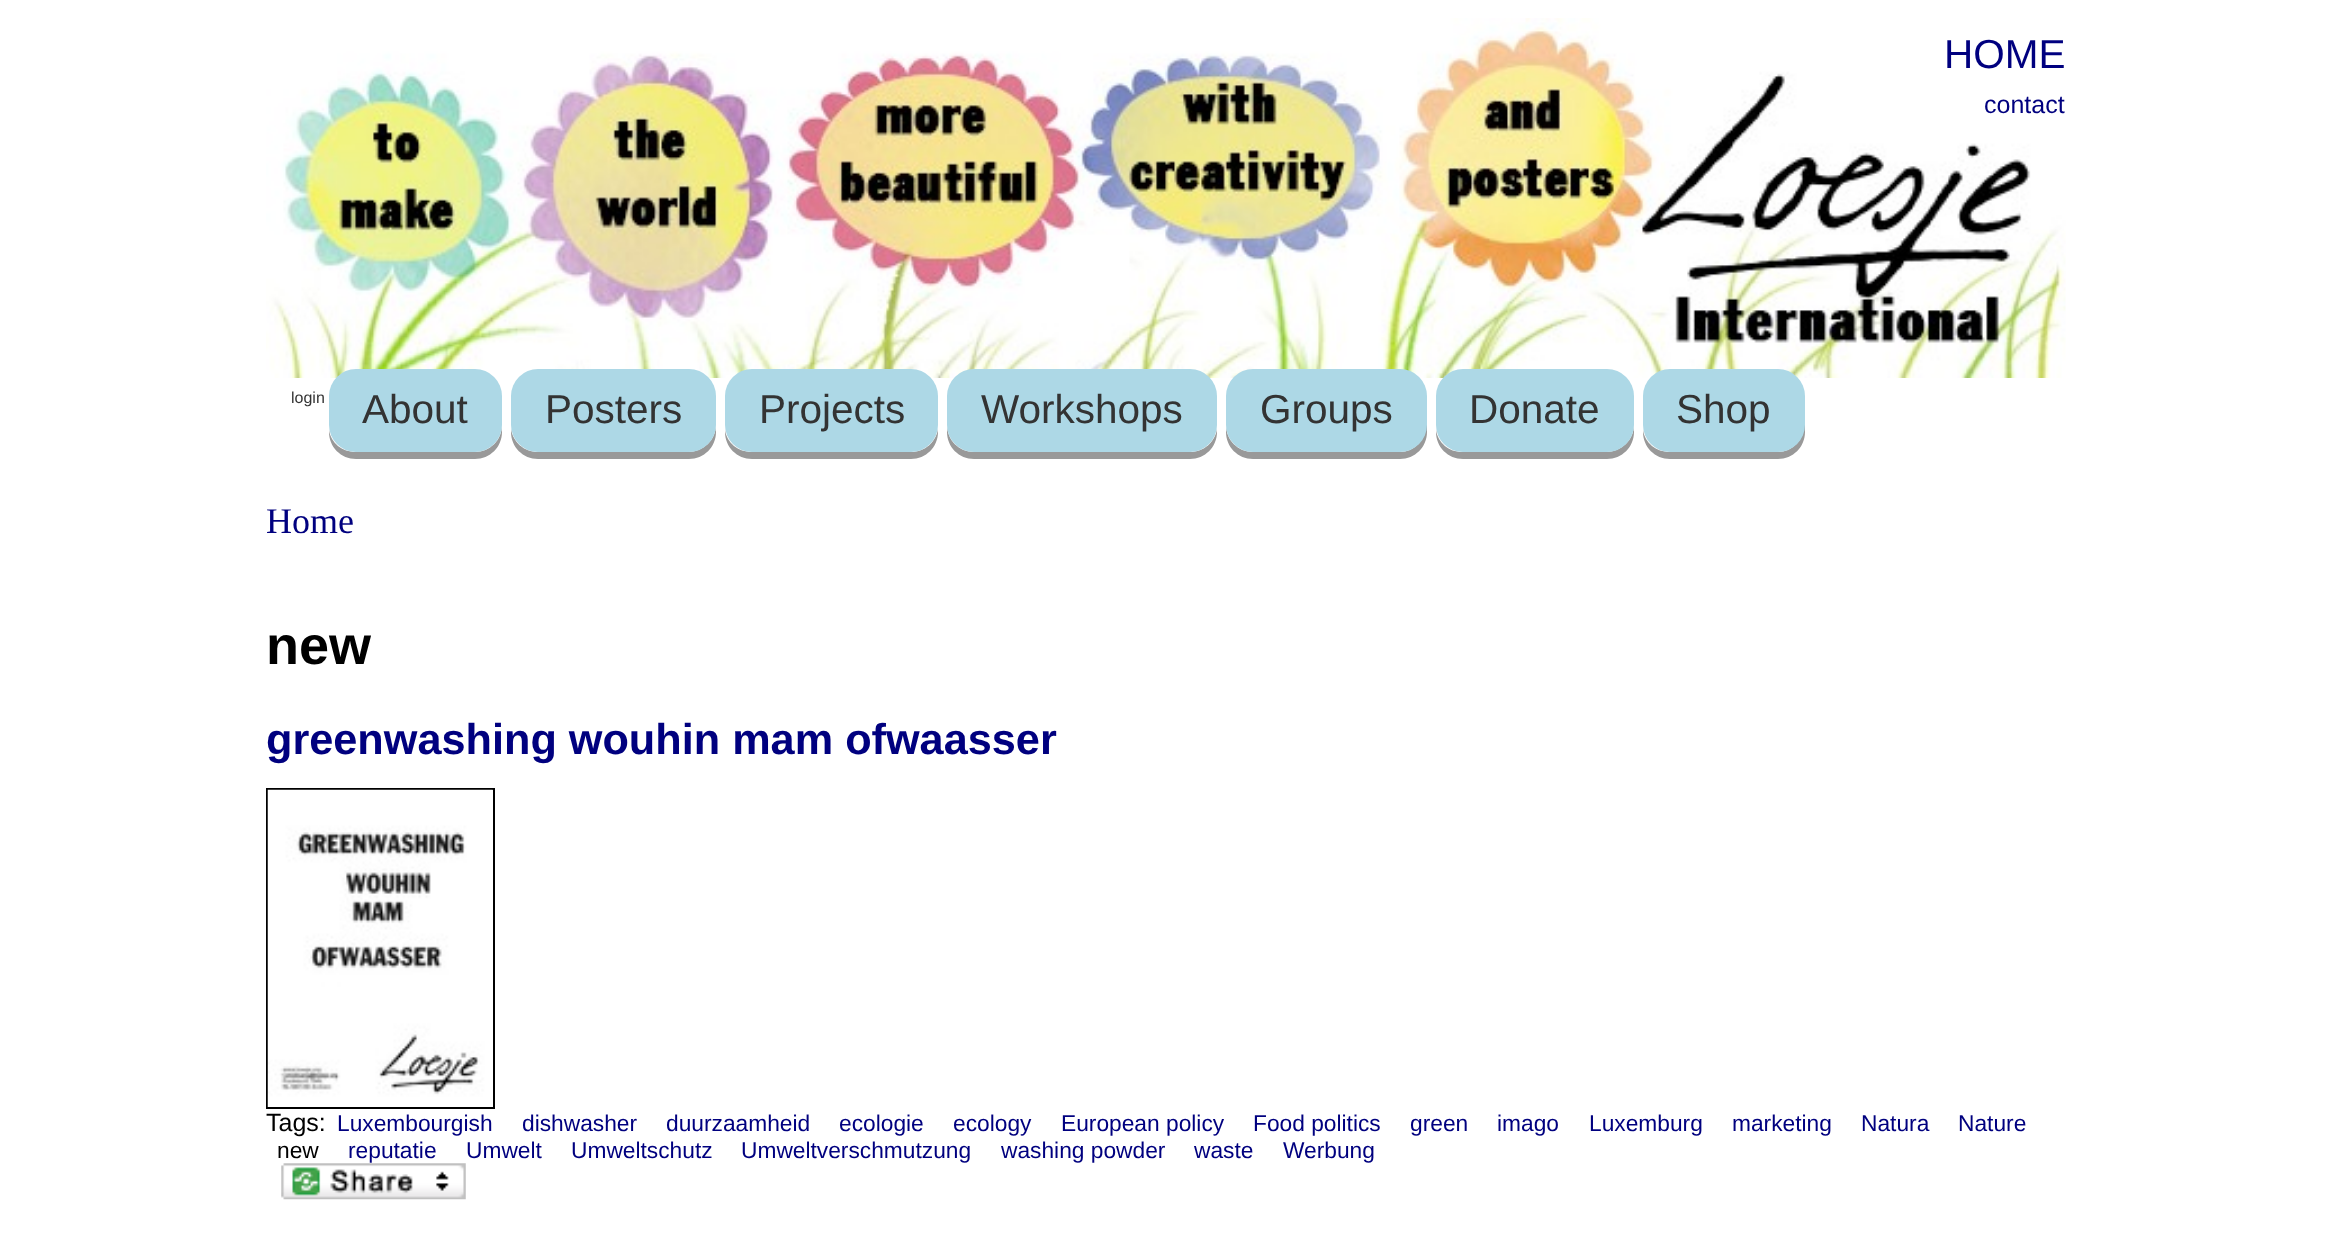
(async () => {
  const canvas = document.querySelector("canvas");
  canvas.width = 2330;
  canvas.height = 1248;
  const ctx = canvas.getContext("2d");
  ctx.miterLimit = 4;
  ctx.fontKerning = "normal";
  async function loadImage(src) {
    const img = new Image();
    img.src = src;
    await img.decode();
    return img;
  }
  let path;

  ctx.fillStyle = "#ffffff";
  ctx.fillRect(0, 0, 2330, 1248);
  ctx.drawImage(await loadImage("img/1.png"), 266, 18, 1800, 360);
  ctx.fillStyle = "#999999";
  path = new Path2D("M329 430V432C329 447 341 459 356 459H475C490 459 502 447 502 432V399V425C502 440 490 452 475 452H356C342 452 331 443 329 430Z");
  ctx.fill(path);
  ctx.fillStyle = "#add8e6";
  ctx.beginPath();
  ctx.roundRect(329, 369, 173, 83, 27);
  ctx.fill();
  ctx.fillStyle = "#999999";
  path = new Path2D("M511 429V432C511 447 523 459 538 459H689C704 459 716 447 716 432V403V398V425C716 440 703 452 688 452H538C524 452 513 442 511 429Z");
  ctx.fill(path);
  ctx.fillStyle = "#add8e6";
  ctx.beginPath();
  ctx.roundRect(511, 369, 205, 83, 27);
  ctx.fill();
  ctx.fillStyle = "#999999";
  path = new Path2D("M725 430V432C725 447 737 459 752 459H911C926 459 938 447 938 432V429C936 442 925 452 911 452H752C738 452 727 443 725 430Z");
  ctx.fill(path);
  ctx.fillStyle = "#add8e6";
  ctx.beginPath();
  ctx.roundRect(725, 369, 213, 83, 27);
  ctx.fill();
  ctx.fillStyle = "#999999";
  path = new Path2D("M947 399V432C947 447 959 459 974 459H1190C1205 459 1217 447 1217 432V429C1215 442 1204 452 1190 452H974C959 452 947 440 947 425Z");
  ctx.fill(path);
  ctx.fillStyle = "#add8e6";
  ctx.beginPath();
  ctx.roundRect(947, 369, 270, 83, 27);
  ctx.fill();
  ctx.fillStyle = "#999999";
  path = new Path2D("M1226 399V432C1226 447 1238 459 1253 459H1400C1415 459 1427 447 1427 432V403L1426 398V425C1426 440 1414 452 1400 452H1253C1238 452 1226 440 1226 425Z");
  ctx.fill(path);
  ctx.fillStyle = "#add8e6";
  ctx.beginPath();
  ctx.roundRect(1226, 369, 201, 83, 27);
  ctx.fill();
  ctx.fillStyle = "#999999";
  path = new Path2D("M1436 430V432C1436 447 1448 459 1463 459H1607C1622 459 1634 447 1634 432V403V398V425C1634 440 1621 452 1606 452H1462C1449 452 1438 443 1436 430Z");
  ctx.fill(path);
  ctx.fillStyle = "#add8e6";
  ctx.beginPath();
  ctx.roundRect(1436, 369, 198, 83, 27);
  ctx.fill();
  ctx.fillStyle = "#999999";
  path = new Path2D("M1643 430V432C1643 447 1655 459 1670 459H1778C1793 459 1805 447 1805 432V403L1804 398V425C1804 440 1792 452 1778 452H1670C1656 452 1645 443 1643 430Z");
  ctx.fill(path);
  ctx.fillStyle = "#add8e6";
  ctx.beginPath();
  ctx.roundRect(1643, 369, 162, 83, 27);
  ctx.fill();
  ctx.strokeStyle = "#000000";
  ctx.lineWidth = 2;
  ctx.strokeRect(267, 789, 227, 319);
  ctx.drawImage(await loadImage("img/2.png"), 267, 789, 226, 318);
  ctx.drawImage(await loadImage("img/3.png"), 281, 1163, 185, 37);
  ctx.font = "40.5px Liberation Sans";
  ctx.fillStyle = "#00007f";
  ctx.fillText("HOME", 1944, 68);
  ctx.font = "25px Liberation Sans";
  ctx.fillText("contact", 1984, 113);
  ctx.font = "16px Liberation Sans";
  ctx.fillStyle = "#333333";
  ctx.fillText("login", 291, 403);
  ctx.font = "40.5px Liberation Sans";
  for (const [text, x, y] of [
    ["About", 362, 423],
    ["Posters", 545, 423],
    ["Projects", 759, 423],
    ["Workshops", 981, 423],
    ["Groups", 1260, 423],
    ["Donate", 1469, 423],
    ["Shop", 1676, 423],
  ]) {
    ctx.fillText(text, x, y);
  }
  ctx.font = "36px Liberation Serif";
  ctx.fillStyle = "#00007f";
  ctx.fillText("Home", 266, 533);
  ctx.font = "bold 54px Liberation Sans";
  ctx.fillStyle = "#000000";
  ctx.fillText("new", 266, 664);
  ctx.font = "bold 43.25px Liberation Sans";
  ctx.fillStyle = "#00007f";
  ctx.fillText("greenwashing wouhin mam ofwaasser", 266, 754);
  ctx.font = "25px Liberation Sans";
  ctx.fillStyle = "#000000";
  ctx.fillText("Tags:", 266, 1131);
  ctx.font = "22.75px Liberation Sans";
  ctx.fillStyle = "#00007f";
  for (const [text, x, y] of [
    ["Luxembourgish", 337, 1131],
    ["dishwasher", 522, 1131],
    ["duurzaamheid", 666, 1131],
    ["ecologie", 839, 1131],
    ["ecology", 953, 1131],
    ["European policy", 1061, 1131],
    ["Food politics", 1253, 1131],
    ["green", 1410, 1131],
    ["imago", 1497, 1131],
    ["Luxemburg", 1589, 1131],
    ["marketing", 1732, 1131],
    ["Natura", 1861, 1131],
    ["Nature", 1958, 1131],
  ]) {
    ctx.fillText(text, x, y);
  }
  ctx.fillStyle = "#000000";
  ctx.fillText("new", 277, 1158);
  ctx.fillStyle = "#00007f";
  for (const [text, x, y] of [
    ["reputatie", 348, 1158],
    ["Umwelt", 466, 1158],
    ["Umweltschutz", 571, 1158],
    ["Umweltverschmutzung", 741, 1158],
    ["washing powder", 1001, 1158],
    ["waste", 1194, 1158],
    ["Werbung", 1283, 1158],
  ]) {
    ctx.fillText(text, x, y);
  }
})();
